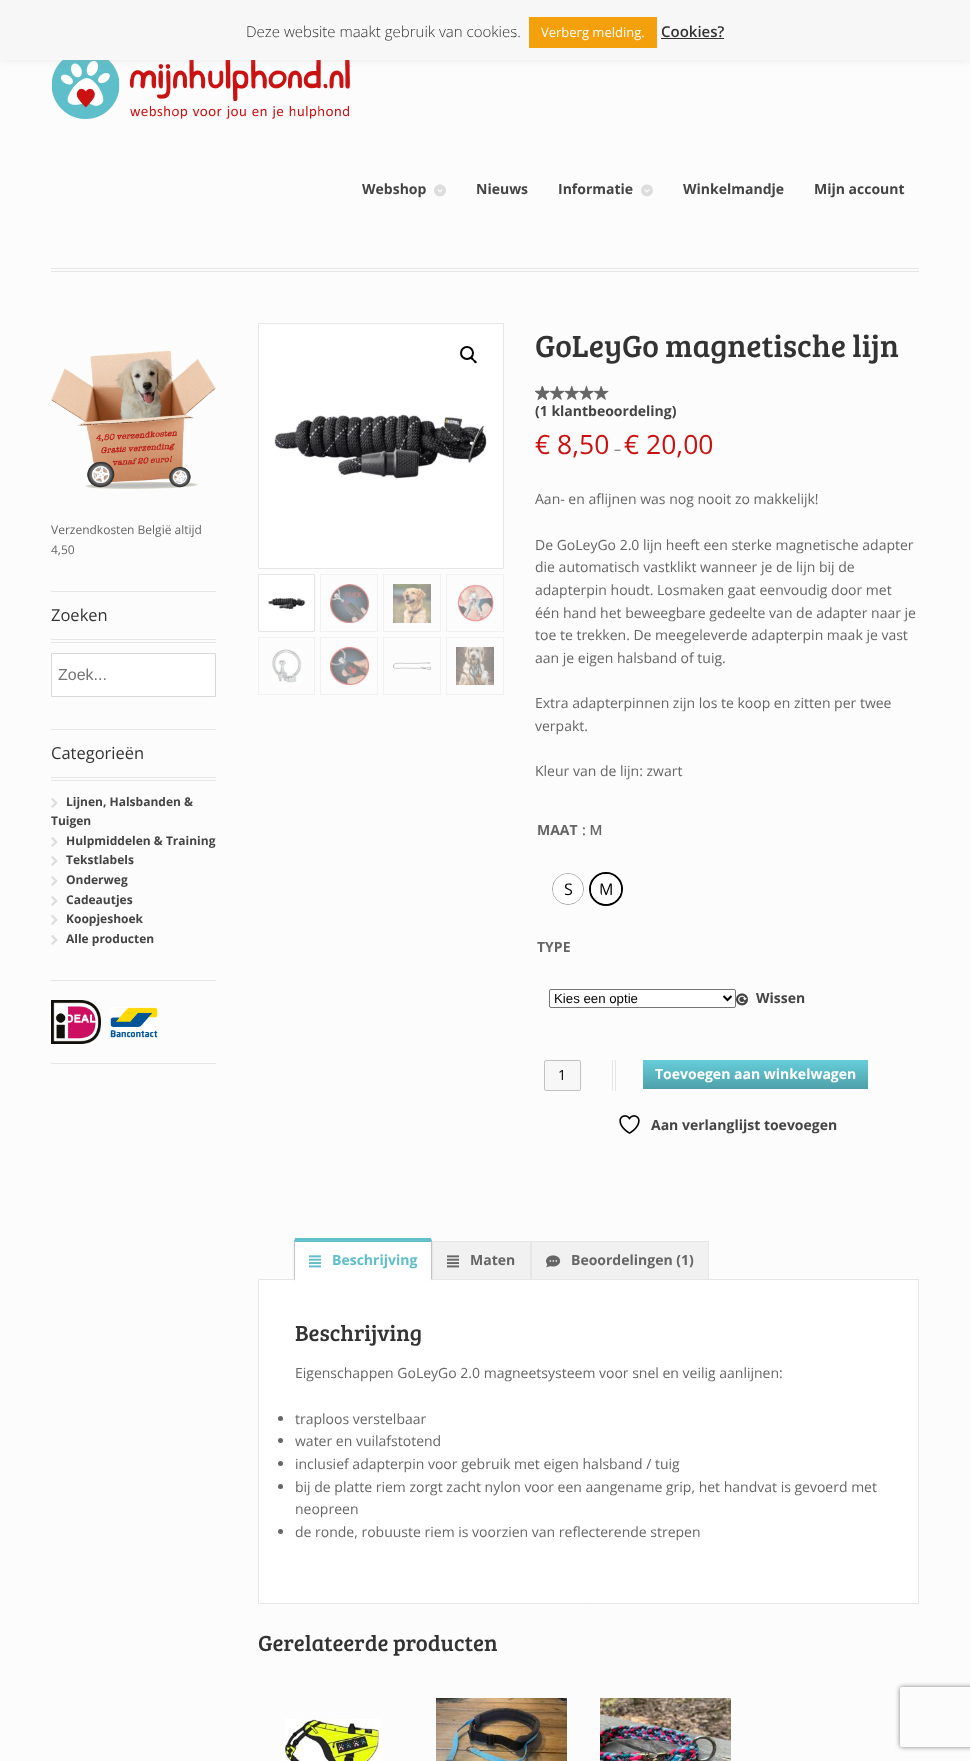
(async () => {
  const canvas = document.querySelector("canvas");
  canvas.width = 970;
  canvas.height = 1761;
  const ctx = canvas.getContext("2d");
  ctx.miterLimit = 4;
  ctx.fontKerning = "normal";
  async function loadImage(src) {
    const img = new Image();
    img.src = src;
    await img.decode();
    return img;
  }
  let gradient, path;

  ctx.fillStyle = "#fcfcfc";
  ctx.fillRect(0, 0, 970, 1761);
  ctx.drawImage(await loadImage("img/1.png"), 51, 60, 299, 59);
  ctx.fillStyle = "rgba(172, 171, 171, 0.3)";
  ctx.filter = "blur(5px)";
  ctx.beginPath();
  ctx.rect(0, -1, 970, 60);
  ctx.fill();
  ctx.filter = "none";
  for (const [x, y, w, h, color] of [
    [0, 0, 970, 60, "#f7f7f7"],
    [529, 17, 128, 31, "#f49f0c"],
    [661, 38, 63, 1, "#333333"],
    [51, 268, 868, 1, "#e6e6e6"],
    [51, 271, 868, 1, "#e6e6e6"],
  ]) {
    ctx.fillStyle = color;
    ctx.fillRect(x, y, w, h);
  }
  ctx.drawImage(await loadImage("img/2.png"), 434, 184, 12, 13);
  ctx.drawImage(await loadImage("img/2.png"), 641, 184, 12, 13);
  ctx.drawImage(await loadImage("img/3.png"), 51, 350, 165, 139);
  for (const [x, y, w, h, color] of [
    [51, 591, 165, 1, "#e6e6e6"],
    [51, 639, 165, 1, "#e6e6e6"],
    [51, 642, 165, 1, "#e6e6e6"],
  ]) {
    ctx.fillStyle = color;
    ctx.fillRect(x, y, w, h);
  }
  ctx.fillStyle = "#ffffff";
  ctx.beginPath();
  ctx.rect(51.5, 653.5, 164, 43);
  ctx.fill();
  ctx.strokeStyle = "#d8d8d8";
  ctx.stroke();
  for (const [x, y, w, h, color] of [
    [51, 729, 165, 1, "#e6e6e6"],
    [51, 777, 165, 1, "#e6e6e6"],
    [51, 780, 165, 1, "#e6e6e6"],
  ]) {
    ctx.fillStyle = color;
    ctx.fillRect(x, y, w, h);
  }
  ctx.drawImage(await loadImage("img/4.png"), 51, 798, 7, 10);
  ctx.drawImage(await loadImage("img/4.png"), 51, 837, 7, 10);
  ctx.drawImage(await loadImage("img/4.png"), 51, 856, 7, 10);
  ctx.drawImage(await loadImage("img/4.png"), 51, 876, 7, 10);
  ctx.drawImage(await loadImage("img/4.png"), 51, 896, 7, 10);
  ctx.drawImage(await loadImage("img/4.png"), 51, 915, 7, 10);
  ctx.drawImage(await loadImage("img/4.png"), 51, 935, 7, 10);
  ctx.fillRect(51, 980, 165, 1);
  ctx.drawImage(await loadImage("img/5.png"), 51, 1000, 50, 44);
  ctx.drawImage(await loadImage("img/6.png"), 110, 1007, 48, 31);
  ctx.fillRect(51, 1063, 165, 1);
  ctx.fillStyle = "#ffffff";
  ctx.beginPath();
  ctx.rect(258.5, 323.5, 245, 245);
  ctx.fill();
  ctx.strokeStyle = "#e6e6e6";
  ctx.stroke();
  ctx.drawImage(await loadImage("img/7.png"), 274, 414, 213, 65);
  ctx.beginPath();
  ctx.arc(467, 353, 6, 0, Math.PI * 2);
  ctx.strokeStyle = "#000000";
  ctx.lineWidth = 2;
  ctx.stroke();
  ctx.fillStyle = "#000000";
  path = new Path2D("M470.5 357C472 356 473.5 358.5 474 359.5C475 360 477.5 361.5 476.5 363C475 364 473.5 361.5 473 360.5C472 360 469.5 358.5 470.5 357Z");
  ctx.fill(path);
  ctx.fillStyle = "#ffffff";
  ctx.beginPath();
  ctx.rect(258.5, 574.5, 56, 57);
  ctx.fill();
  ctx.strokeStyle = "#e6e6e6";
  ctx.lineWidth = 1;
  ctx.stroke();
  ctx.drawImage(await loadImage("img/8.png"), 268, 598, 38, 12);
  ctx.strokeStyle = "#f1f1f1";
  ctx.strokeRect(320.5, 574.5, 57, 57);
  ctx.drawImage(await loadImage("img/9.png"), 330, 584, 39, 39);
  ctx.strokeRect(383.5, 574.5, 57, 57);
  ctx.drawImage(await loadImage("img/10.png"), 393, 584, 38, 39);
  ctx.strokeRect(446.5, 574.5, 57, 57);
  ctx.drawImage(await loadImage("img/11.png"), 457, 584, 37, 38);
  ctx.strokeRect(258.5, 637.5, 56, 57);
  ctx.drawImage(await loadImage("img/12.png"), 272, 649, 30, 34);
  ctx.strokeRect(320.5, 637.5, 57, 57);
  ctx.drawImage(await loadImage("img/13.png"), 330, 647, 39, 38);
  ctx.strokeRect(383.5, 637.5, 57, 57);
  ctx.drawImage(await loadImage("img/14.png"), 393, 662, 38, 8);
  ctx.strokeRect(446.5, 637.5, 57, 57);
  ctx.drawImage(await loadImage("img/15.png"), 456, 647, 38, 38);
  ctx.drawImage(await loadImage("img/16.png"), 535, 386, 74, 14);
  ctx.drawImage(await loadImage("img/17.png"), 535, 386, 74, 14);
  ctx.drawImage(await loadImage("img/18.png"), 535, 386, 14, 14);
  ctx.beginPath();
  ctx.arc(568, 889, 15.5, 0, Math.PI * 2);
  ctx.strokeStyle = "#a8a8a8";
  ctx.stroke();
  ctx.beginPath();
  ctx.arc(568, 889, 15, 0, Math.PI * 2);
  ctx.fill();
  ctx.beginPath();
  ctx.arc(606, 889, 16, 0, Math.PI * 2);
  ctx.strokeStyle = "#000000";
  ctx.lineWidth = 2;
  ctx.stroke();
  ctx.beginPath();
  ctx.arc(606, 889, 15, 0, Math.PI * 2);
  ctx.fill();
  ctx.beginPath();
  ctx.roundRect(549.5, 989.5, 186, 18, 1.5);
  ctx.fill();
  ctx.strokeStyle = "#767676";
  ctx.lineWidth = 1;
  ctx.stroke();
  path = new Path2D("M723.5 996L727.5 1000L731.5 996");
  ctx.strokeStyle = "#000000";
  ctx.lineWidth = 2;
  ctx.stroke(path);
  ctx.drawImage(await loadImage("img/19.png"), 736, 993, 12, 13);
  ctx.fillStyle = "#e6e6e6";
  ctx.fillRect(612, 1060, 1, 31);
  ctx.fillRect(615, 1060, 1, 31);
  ctx.fillStyle = "#f7f7f7";
  ctx.beginPath();
  ctx.roundRect(544.5, 1060.5, 36, 30, 1.5);
  ctx.fill();
  ctx.strokeStyle = "#c2c2c2";
  ctx.lineWidth = 1;
  ctx.stroke();
  gradient = ctx.createLinearGradient(756, 1060, 756, 1089);
  gradient.addColorStop(0, "#66ceda");
  gradient.addColorStop(1, "#4ea0a9");
  ctx.fillStyle = gradient;
  ctx.fillRect(643, 1060, 225, 29);
  ctx.drawImage(await loadImage("img/20.png"), 619, 1115, 21, 19);
  ctx.fillStyle = "#5ebec9";
  path = new Path2D("M296 1239H430C432 1239 432 1240 432 1242H294C294 1240 294 1239 296 1239Z");
  ctx.fill(path);
  for (const [x, y, w, h, color] of [
    [295, 1238, 136, 1, "#5ebec9"],
    [433, 1242, 97, 37, "#f1f1f1"],
    [432, 1241, 277, 1, "#e6e6e6"],
    [432, 1241, 1, 38, "#e6e6e6"],
  ]) {
    ctx.fillStyle = color;
    ctx.fillRect(x, y, w, h);
  }
  ctx.fillStyle = "#ffffff";
  ctx.beginPath();
  ctx.rect(258.5, 1279.5, 660, 324);
  ctx.fill();
  ctx.strokeStyle = "#e6e6e6";
  ctx.stroke();
  ctx.fillStyle = "#e6e6e6";
  ctx.filter = "blur(1px)";
  ctx.beginPath();
  ctx.rect(294, 1242, 138, 38);
  ctx.fill();
  ctx.filter = "none";
  for (const [x, y, w, h, color] of [
    [295, 1242, 136, 39, "#ffffff"],
    [294, 1241, 138, 1, "#5ebec9"],
    [431, 1241, 1, 38, "#c4c4c4"],
    [294, 1241, 1, 38, "#c4c4c4"],
  ]) {
    ctx.fillStyle = color;
    ctx.fillRect(x, y, w, h);
  }
  ctx.drawImage(await loadImage("img/21.png"), 309, 1255, 12, 13);
  ctx.fillStyle = "#e6e6e6";
  ctx.fillRect(530, 1241, 2, 38);
  ctx.drawImage(await loadImage("img/22.png"), 447, 1255, 12, 13);
  ctx.fillStyle = "#f1f1f1";
  ctx.fillRect(532, 1242, 176, 37);
  ctx.fillStyle = "#e6e6e6";
  ctx.fillRect(708, 1241, 1, 38);
  ctx.drawImage(await loadImage("img/23.png"), 546, 1255, 15, 13);
  ctx.fillStyle = "#666666";
  ctx.beginPath();
  ctx.arc(280.5, 1418.5, 2.5, 0, Math.PI * 2);
  ctx.fill();
  ctx.beginPath();
  ctx.arc(280.5, 1440.5, 2.5, 0, Math.PI * 2);
  ctx.fill();
  ctx.beginPath();
  ctx.arc(280.5, 1463.5, 2.5, 0, Math.PI * 2);
  ctx.fill();
  ctx.beginPath();
  ctx.arc(280.5, 1486.5, 2.5, 0, Math.PI * 2);
  ctx.fill();
  ctx.beginPath();
  ctx.arc(280.5, 1531.5, 2.5, 0, Math.PI * 2);
  ctx.fill();
  ctx.drawImage(await loadImage("img/24.png"), 285, 1719, 96, 42);
  ctx.drawImage(await loadImage("img/25.png"), 436, 1698, 131, 63);
  ctx.drawImage(await loadImage("img/26.png"), 600, 1698, 131, 63);
  ctx.save();
  path = new Path2D("M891 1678H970V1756H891ZM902 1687H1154C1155 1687 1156 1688 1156 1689V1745C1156 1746 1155 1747 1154 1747H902C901 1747 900 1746 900 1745V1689C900 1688 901 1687 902 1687Z");
  ctx.clip(path, "evenodd");
  ctx.fillStyle = "#808080";
  ctx.filter = "blur(2.5px)";
  ctx.beginPath();
  ctx.roundRect(900, 1687, 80, 60, 2);
  ctx.fill();
  ctx.filter = "none";
  ctx.restore();
  ctx.font = "300 15px Open Sans";
  ctx.fillStyle = "#333333";
  ctx.fillText("Deze website maakt gebruik van cookies.", 246, 37);
  ctx.font = "13px Open Sans";
  ctx.fillStyle = "#ffffff";
  ctx.fillText("Verberg melding.", 541, 37);
  ctx.font = "600 15px Open Sans";
  ctx.fillStyle = "#333333";
  ctx.fillText("Cookies?", 661, 37);
  ctx.font = "bold 14px Open Sans";
  ctx.fillStyle = "#444444";
  for (const [text, x, y] of [
    ["Webshop", 362, 194],
    ["Nieuws", 476, 194],
    ["Informatie", 558, 194],
    ["Winkelmandje", 683, 194],
    ["Mijn account", 814, 194],
  ]) {
    ctx.fillText(text, x, y);
  }
  ctx.font = "12px Open Sans";
  ctx.fillStyle = "#666666";
  ctx.fillText("Verzendkosten België altijd", 51, 534);
  ctx.fillText("4,50", 51, 554);
  ctx.font = "16.5px Open Sans";
  ctx.fillStyle = "#333333";
  ctx.fillText("Zoeken", 51, 621);
  ctx.font = "16px Liberation Sans";
  ctx.fillStyle = "#757575";
  ctx.fillText("Zoek...", 58, 680);
  ctx.font = "16.5px Open Sans";
  ctx.fillStyle = "#333333";
  ctx.fillText("Categorieën", 51, 759);
  ctx.font = "bold 12px Open Sans";
  ctx.fillStyle = "#444444";
  for (const [text, x, y] of [
    ["Lijnen, Halsbanden &", 66, 806],
    ["Tuigen", 51, 825],
    ["Hulpmiddelen & Training", 66, 845],
    ["Tekstlabels", 66, 864],
    ["Onderweg", 66, 884],
    ["Cadeautjes", 66, 904],
    ["Koopjeshoek", 66, 923],
    ["Alle producten", 66, 943],
  ]) {
    ctx.fillText(text, x, y);
  }
  ctx.font = "31.5px Bree Serif";
  ctx.fillStyle = "#333333";
  ctx.fillText("GoLeyGo magnetische lijn", 535, 357);
  ctx.font = "bold 14px Open Sans";
  ctx.fillStyle = "#444444";
  ctx.fillText("(1 klantbeoordeling)", 535, 416);
  ctx.font = "26.5px Open Sans";
  ctx.fillStyle = "#ca1212";
  ctx.fillText("€ 8,50", 535, 454);
  ctx.font = "14px Open Sans";
  ctx.fillStyle = "#666666";
  ctx.fillText("–", 614, 454);
  ctx.font = "26.5px Open Sans";
  ctx.fillStyle = "#ca1212";
  ctx.fillText("€ 20,00", 624, 454);
  ctx.font = "14px Open Sans";
  ctx.fillStyle = "#666666";
  for (const [text, x, y] of [
    ["Aan- en aflijnen was nog nooit zo makkelijk!", 535, 504],
    ["De GoLeyGo 2.0 lijn heeft een sterke magnetische adapter", 535, 550],
    ["die automatisch vastklikt wanneer je de lijn bij de", 535, 572],
    ["adapterpin houdt. Losmaken gaat eenvoudig door met", 535, 595],
    ["één hand het beweegbare gedeelte van de adapter naar je", 535, 618],
    ["toe te trekken. De meegeleverde adapterpin maak je vast", 535, 640],
    ["aan je eigen halsband of tuig.", 535, 663],
    ["Extra adapterpinnen zijn los te koop en zitten per twee", 535, 708],
    ["verpakt.", 535, 731],
    ["Kleur van de lijn: zwart", 535, 776],
  ]) {
    ctx.fillText(text, x, y);
  }
  ctx.font = "bold 14px Open Sans";
  ctx.fillText("MAAT", 537, 835);
  ctx.font = "600 14px Open Sans";
  ctx.fillText(": M", 582, 835);
  ctx.save();
  path = new Path2D("M568.5 881C571 881 573 884.5 573 889C573 893.5 571 897 568.5 897C566 897 564 893.5 564 889C564 884.5 566 881 568.5 881Z");
  ctx.clip(path);
  ctx.font = "16px Open Sans";
  ctx.fillStyle = "#000000";
  ctx.fillText("S", 564, 895);
  ctx.restore();
  ctx.save();
  ctx.beginPath();
  ctx.roundRect(599, 881, 15, 16, 7.5);
  ctx.clip();
  ctx.font = "16px Open Sans";
  ctx.fillStyle = "#000000";
  ctx.fillText("M", 599, 895);
  ctx.restore();
  ctx.font = "bold 14px Open Sans";
  ctx.fillText("TYPE", 537, 952);
  ctx.font = "13.25px Liberation Sans";
  ctx.fillStyle = "#000000";
  ctx.fillText("Kies een optie", 554, 1003);
  ctx.font = "bold 14px Open Sans";
  ctx.fillStyle = "#444444";
  ctx.fillText("Wissen", 756, 1003);
  ctx.font = "14px Open Sans";
  ctx.fillStyle = "#000000";
  ctx.fillText("1", 558, 1080);
  ctx.font = "bold 14px Open Sans";
  ctx.fillStyle = "#ffffff";
  ctx.fillText("Toevoegen aan winkelwagen", 655, 1079);
  ctx.fillStyle = "#444444";
  ctx.fillText("Aan verlanglijst toevoegen", 651, 1130);
  ctx.fillStyle = "#5ebec9";
  ctx.fillText("Beschrijving", 332, 1265);
  ctx.fillStyle = "#666666";
  ctx.fillText("Maten", 470, 1265);
  ctx.fillText("Beoordelingen (1)", 571, 1265);
  ctx.font = "22.6px Bree Serif";
  ctx.fillStyle = "#333333";
  ctx.fillText("Beschrijving", 295, 1341);
  ctx.font = "14px Open Sans";
  ctx.fillStyle = "#666666";
  for (const [text, x, y] of [
    ["Eigenschappen GoLeyGo 2.0 magneetsysteem voor snel en veilig aanlijnen:", 295, 1378],
    ["traploos verstelbaar", 295, 1424],
    ["water en vuilafstotend", 295, 1446],
    ["inclusief adapterpin voor gebruik met eigen halsband / tuig", 295, 1469],
    ["bij de platte riem zorgt zacht nylon voor een aangename grip, het handvat is gevoerd met", 295, 1492],
    ["neopreen", 295, 1514],
    ["de ronde, robuuste riem is voorzien van reflecterende strepen", 295, 1537],
  ]) {
    ctx.fillText(text, x, y);
  }
  ctx.font = "22.6px Bree Serif";
  ctx.fillStyle = "#333333";
  ctx.fillText("Gerelateerde producten", 258, 1651);
})();
